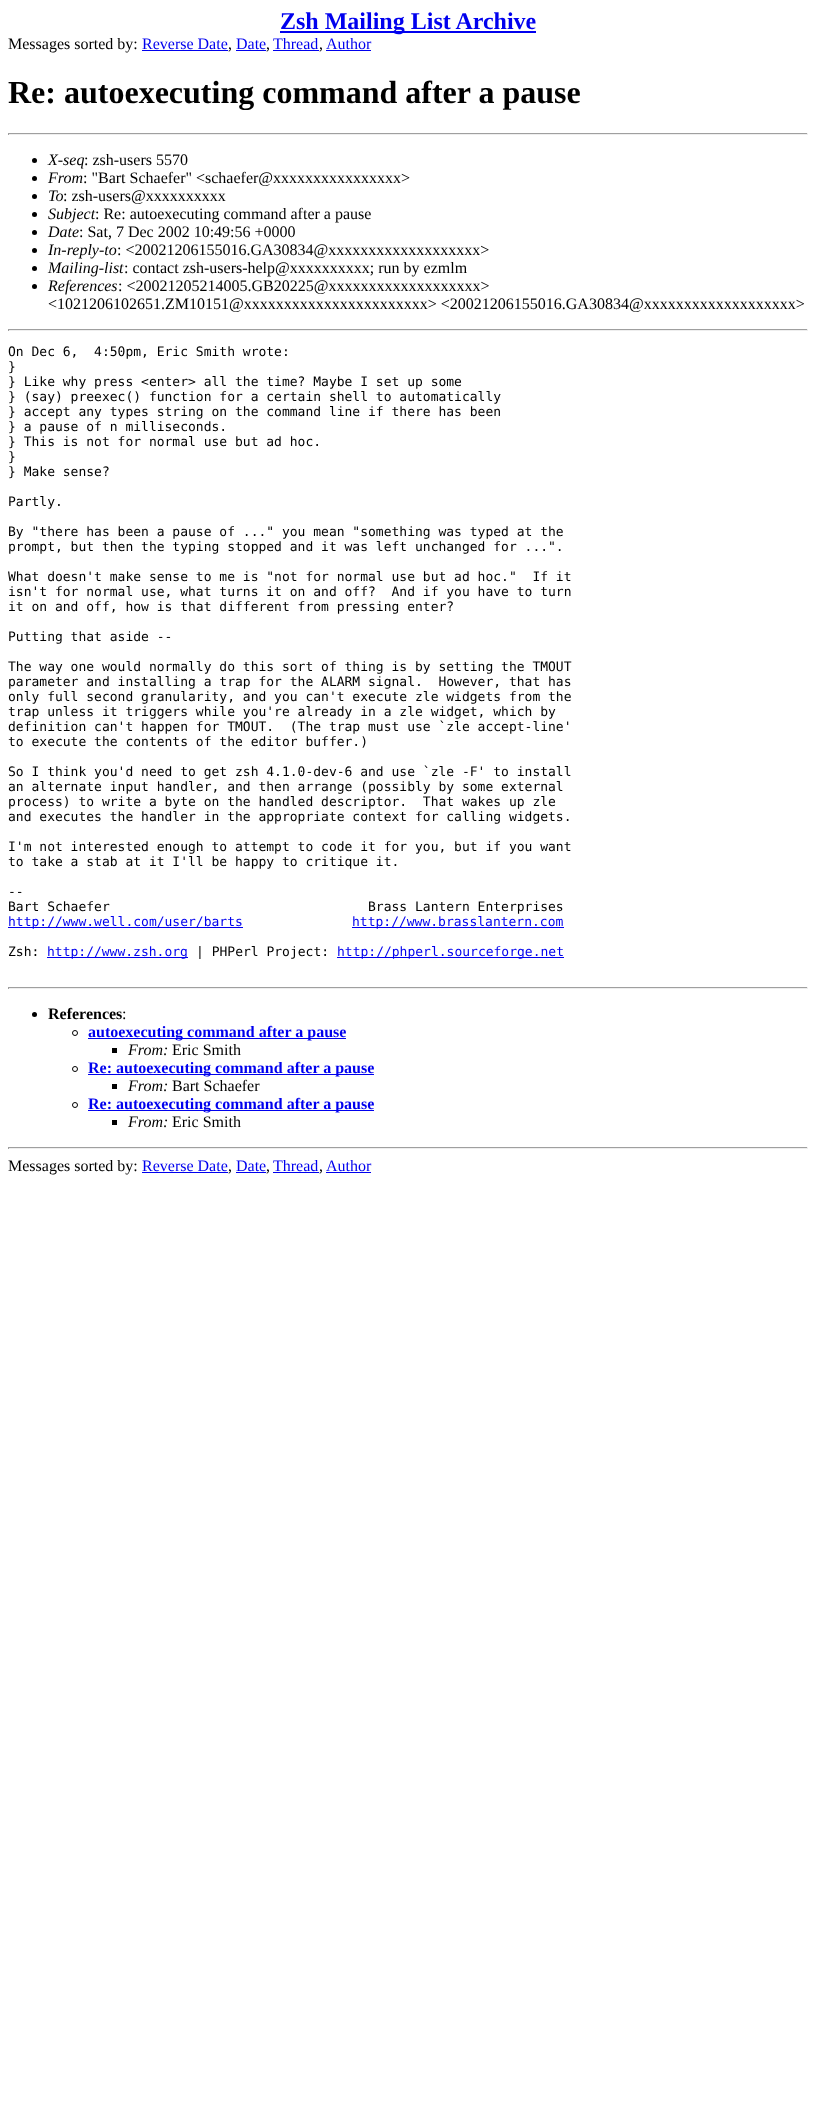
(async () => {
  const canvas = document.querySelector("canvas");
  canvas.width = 816;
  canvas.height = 2114;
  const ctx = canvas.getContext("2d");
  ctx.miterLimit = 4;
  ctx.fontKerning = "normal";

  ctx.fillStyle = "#ffffff";
  ctx.fillRect(0, 0, 816, 2114);
  for (const [x, y, w, h, color] of [
    [280, 31, 256, 2, "#0000ee"],
    [142, 50, 86, 1, "#0000ee"],
    [236, 50, 30, 1, "#0000ee"],
    [273, 50, 46, 1, "#0000ee"],
    [326, 50, 45, 1, "#0000ee"],
    [8, 133, 800, 1, "#9f9f9f"],
    [807, 133, 1, 2, "#eeeeee"],
    [8, 134, 800, 1, "#eeeeee"],
    [8, 133, 1, 2, "#9f9f9f"],
  ]) {
    ctx.fillStyle = color;
    ctx.fillRect(x, y, w, h);
  }
  ctx.fillStyle = "#000000";
  ctx.beginPath();
  ctx.arc(34.5, 160.5, 2.5, 0, Math.PI * 2);
  ctx.fill();
  ctx.beginPath();
  ctx.arc(34.5, 178.5, 2.5, 0, Math.PI * 2);
  ctx.fill();
  ctx.beginPath();
  ctx.arc(34.5, 196.5, 2.5, 0, Math.PI * 2);
  ctx.fill();
  ctx.beginPath();
  ctx.arc(34.5, 214.5, 2.5, 0, Math.PI * 2);
  ctx.fill();
  ctx.beginPath();
  ctx.arc(34.5, 232.5, 2.5, 0, Math.PI * 2);
  ctx.fill();
  ctx.beginPath();
  ctx.arc(34.5, 250.5, 2.5, 0, Math.PI * 2);
  ctx.fill();
  ctx.beginPath();
  ctx.arc(34.5, 268.5, 2.5, 0, Math.PI * 2);
  ctx.fill();
  ctx.beginPath();
  ctx.arc(34.5, 286.5, 2.5, 0, Math.PI * 2);
  ctx.fill();
  for (const [x, y, w, h, color] of [
    [8, 329, 800, 1, "#9f9f9f"],
    [807, 329, 1, 2, "#eeeeee"],
    [8, 330, 800, 1, "#eeeeee"],
    [8, 329, 1, 2, "#9f9f9f"],
    [8, 927, 235, 1, "#0000ee"],
    [352, 927, 212, 1, "#0000ee"],
    [47, 957, 141, 1, "#0000ee"],
    [337, 957, 227, 1, "#0000ee"],
    [8, 987, 800, 1, "#9f9f9f"],
    [807, 987, 1, 2, "#eeeeee"],
    [8, 988, 800, 1, "#eeeeee"],
    [8, 987, 1, 2, "#9f9f9f"],
  ]) {
    ctx.fillStyle = color;
    ctx.fillRect(x, y, w, h);
  }
  ctx.fillStyle = "#000000";
  ctx.beginPath();
  ctx.arc(34.5, 1014.5, 2.5, 0, Math.PI * 2);
  ctx.fill();
  ctx.beginPath();
  ctx.arc(75, 1033, 2.5, 0, Math.PI * 2);
  ctx.strokeStyle = "#000000";
  ctx.stroke();
  ctx.fillStyle = "#0000ee";
  ctx.fillRect(88, 1038, 258, 1);
  ctx.fillStyle = "#000000";
  ctx.fillRect(112, 1048, 5, 5);
  ctx.beginPath();
  ctx.arc(75, 1069, 2.5, 0, Math.PI * 2);
  ctx.stroke();
  ctx.fillStyle = "#0000ee";
  ctx.fillRect(88, 1074, 286, 1);
  ctx.fillStyle = "#000000";
  ctx.fillRect(112, 1084, 5, 5);
  ctx.beginPath();
  ctx.arc(75, 1105, 2.5, 0, Math.PI * 2);
  ctx.stroke();
  for (const [x, y, w, h, color] of [
    [88, 1110, 286, 1, "#0000ee"],
    [112, 1120, 5, 5, "#000000"],
    [8, 1147, 800, 1, "#9f9f9f"],
    [807, 1147, 1, 2, "#eeeeee"],
    [8, 1148, 800, 1, "#eeeeee"],
    [8, 1147, 1, 2, "#9f9f9f"],
    [142, 1172, 86, 1, "#0000ee"],
    [236, 1172, 30, 1, "#0000ee"],
    [273, 1172, 46, 1, "#0000ee"],
    [326, 1172, 45, 1, "#0000ee"],
  ]) {
    ctx.fillStyle = color;
    ctx.fillRect(x, y, w, h);
  }
  ctx.font = "bold 24px Liberation Serif";
  ctx.fillText("Zsh Mailing List Archive", 280, 29);
  ctx.font = "16px Liberation Serif";
  ctx.fillStyle = "#000000";
  ctx.fillText("Messages sorted by:", 8, 49);
  ctx.fillStyle = "#0000ee";
  ctx.fillText("Reverse Date", 142, 49);
  ctx.fillStyle = "#000000";
  ctx.fillText(",", 228, 49);
  ctx.fillStyle = "#0000ee";
  ctx.fillText("Date", 236, 49);
  ctx.fillStyle = "#000000";
  ctx.fillText(",", 266, 49);
  ctx.fillStyle = "#0000ee";
  ctx.fillText("Thread", 273, 49);
  ctx.fillStyle = "#000000";
  ctx.fillText(",", 319, 49);
  ctx.fillStyle = "#0000ee";
  ctx.fillText("Author", 326, 49);
  ctx.font = "bold 32px Liberation Serif";
  ctx.fillStyle = "#000000";
  ctx.fillText("Re: autoexecuting command after a pause", 8, 103);
  ctx.font = "italic 16px Liberation Serif";
  ctx.fillText("X-seq", 48, 165);
  ctx.font = "16px Liberation Serif";
  ctx.fillText(": zsh-users 5570", 84, 165);
  ctx.font = "italic 16px Liberation Serif";
  ctx.fillText("From", 48, 183);
  ctx.font = "16px Liberation Serif";
  ctx.fillText(": \"Bart Schaefer\" <schaefer@xxxxxxxxxxxxxxxx>", 83, 183);
  ctx.font = "italic 16px Liberation Serif";
  ctx.fillText("To", 48, 201);
  ctx.font = "16px Liberation Serif";
  ctx.fillText(": zsh-users@xxxxxxxxxx", 63, 201);
  ctx.font = "italic 16px Liberation Serif";
  ctx.fillText("Subject", 48, 219);
  ctx.font = "16px Liberation Serif";
  ctx.fillText(": Re: autoexecuting command after a pause", 95, 219);
  ctx.font = "italic 16px Liberation Serif";
  ctx.fillText("Date", 48, 237);
  ctx.font = "16px Liberation Serif";
  ctx.fillText(": Sat, 7 Dec 2002 10:49:56 +0000", 79, 237);
  ctx.font = "italic 16px Liberation Serif";
  ctx.fillText("In-reply-to", 48, 255);
  ctx.font = "16px Liberation Serif";
  ctx.fillText(": <20021206155016.GA30834@xxxxxxxxxxxxxxxxxxx>", 117, 255);
  ctx.font = "italic 16px Liberation Serif";
  ctx.fillText("Mailing-list", 48, 273);
  ctx.font = "16px Liberation Serif";
  ctx.fillText(": contact zsh-users-help@xxxxxxxxxx; run by ezmlm", 124, 273);
  ctx.font = "italic 16px Liberation Serif";
  ctx.fillText("References", 48, 291);
  ctx.font = "16px Liberation Serif";
  ctx.fillText(": <20021205214005.GB20225@xxxxxxxxxxxxxxxxxxx>", 118, 291);
  ctx.fillText("<1021206102651.ZM10151@xxxxxxxxxxxxxxxxxxxxxxx> <20021206155016.GA30834@xxxxxxxxxxxxxxxxxxx>", 48, 309);
  ctx.font = "13px DejaVu Sans Mono";
  for (const [text, x, y] of [
    ["On Dec 6,  4:50pm, Eric Smith wrote:", 8, 356],
    ["}", 8, 371],
    ["} Like why press <enter> all the time? Maybe I set up some", 8, 386],
    ["} (say) preexec() function for a certain shell to automatically", 8, 401],
    ["} accept any types string on the command line if there has been", 8, 416],
    ["} a pause of n milliseconds.", 8, 431],
    ["} This is not for normal use but ad hoc.", 8, 446],
    ["}", 8, 461],
    ["} Make sense?", 8, 476],
    ["Partly.", 8, 506],
    ["By \"there has been a pause of ...\" you mean \"something was typed at the", 8, 536],
    ["prompt, but then the typing stopped and it was left unchanged for ...\".", 8, 551],
    ["What doesn't make sense to me is \"not for normal use but ad hoc.\"  If it", 8, 581],
    ["isn't for normal use, what turns it on and off?  And if you have to turn", 8, 596],
    ["it on and off, how is that different from pressing enter?", 8, 611],
    ["Putting that aside --", 8, 641],
    ["The way one would normally do this sort of thing is by setting the TMOUT", 8, 671],
    ["parameter and installing a trap for the ALARM signal.  However, that has", 8, 686],
    ["only full second granularity, and you can't execute zle widgets from the", 8, 701],
    ["trap unless it triggers while you're already in a zle widget, which by", 8, 716],
    ["definition can't happen for TMOUT.  (The trap must use `zle accept-line'", 8, 731],
    ["to execute the contents of the editor buffer.)", 8, 746],
    ["So I think you'd need to get zsh 4.1.0-dev-6 and use `zle -F' to install", 8, 776],
    ["an alternate input handler, and then arrange (possibly by some external", 8, 791],
    ["process) to write a byte on the handled descriptor.  That wakes up zle", 8, 806],
    ["and executes the handler in the appropriate context for calling widgets.", 8, 821],
    ["I'm not interested enough to attempt to code it for you, but if you want", 8, 851],
    ["to take a stab at it I'll be happy to critique it.", 8, 866],
    ["--", 8, 896],
    ["Bart Schaefer                                 Brass Lantern Enterprises", 8, 911],
  ]) {
    ctx.fillText(text, x, y);
  }
  ctx.fillStyle = "#0000ee";
  ctx.fillText("http://www.well.com/user/barts", 8, 926);
  ctx.fillText("http://www.brasslantern.com", 352, 926);
  ctx.fillStyle = "#000000";
  ctx.fillText("Zsh:", 8, 956);
  ctx.fillStyle = "#0000ee";
  ctx.fillText("http://www.zsh.org", 47, 956);
  ctx.fillStyle = "#000000";
  ctx.fillText("| PHPerl Project:", 196, 956);
  ctx.fillStyle = "#0000ee";
  ctx.fillText("http://phperl.sourceforge.net", 337, 956);
  ctx.font = "bold 16px Liberation Serif";
  ctx.fillStyle = "#000000";
  ctx.fillText("References", 48, 1019);
  ctx.font = "16px Liberation Serif";
  ctx.fillText(":", 122, 1019);
  ctx.font = "bold 16px Liberation Serif";
  ctx.fillStyle = "#0000ee";
  ctx.fillText("autoexecuting command after a pause", 88, 1037);
  ctx.font = "italic 16px Liberation Serif";
  ctx.fillStyle = "#000000";
  ctx.fillText("From:", 128, 1055);
  ctx.font = "16px Liberation Serif";
  ctx.fillText("Eric Smith", 172, 1055);
  ctx.font = "bold 16px Liberation Serif";
  ctx.fillStyle = "#0000ee";
  ctx.fillText("Re: autoexecuting command after a pause", 88, 1073);
  ctx.font = "italic 16px Liberation Serif";
  ctx.fillStyle = "#000000";
  ctx.fillText("From:", 128, 1091);
  ctx.font = "16px Liberation Serif";
  ctx.fillText("Bart Schaefer", 172, 1091);
  ctx.font = "bold 16px Liberation Serif";
  ctx.fillStyle = "#0000ee";
  ctx.fillText("Re: autoexecuting command after a pause", 88, 1109);
  ctx.font = "italic 16px Liberation Serif";
  ctx.fillStyle = "#000000";
  ctx.fillText("From:", 128, 1127);
  ctx.font = "16px Liberation Serif";
  ctx.fillText("Eric Smith", 172, 1127);
  ctx.fillText("Messages sorted by:", 8, 1171);
  ctx.fillStyle = "#0000ee";
  ctx.fillText("Reverse Date", 142, 1171);
  ctx.fillStyle = "#000000";
  ctx.fillText(",", 228, 1171);
  ctx.fillStyle = "#0000ee";
  ctx.fillText("Date", 236, 1171);
  ctx.fillStyle = "#000000";
  ctx.fillText(",", 266, 1171);
  ctx.fillStyle = "#0000ee";
  ctx.fillText("Thread", 273, 1171);
  ctx.fillStyle = "#000000";
  ctx.fillText(",", 319, 1171);
  ctx.fillStyle = "#0000ee";
  ctx.fillText("Author", 326, 1171);
})();
